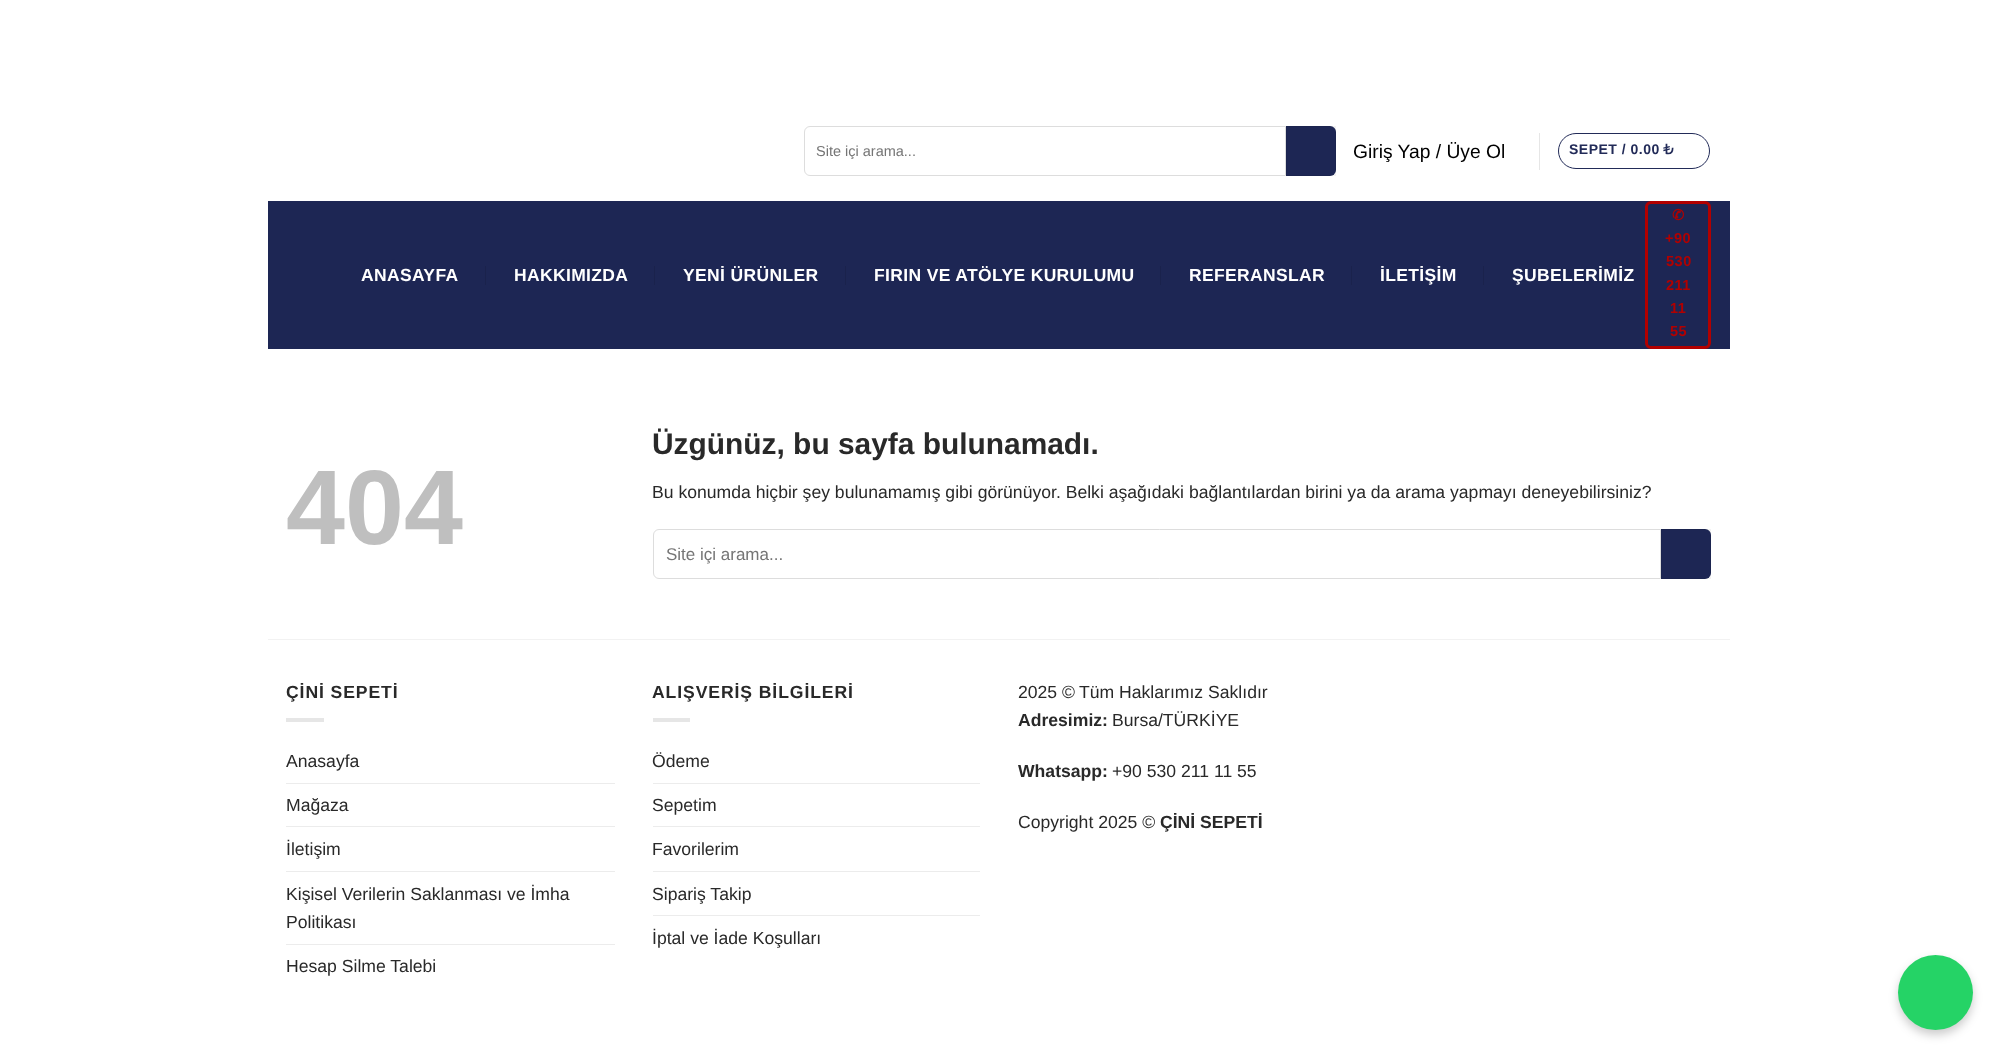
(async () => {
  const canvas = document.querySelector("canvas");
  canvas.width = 1997;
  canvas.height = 1054;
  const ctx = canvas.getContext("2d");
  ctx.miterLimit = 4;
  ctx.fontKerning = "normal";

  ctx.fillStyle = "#ffffff";
  ctx.fillRect(0, 0, 1997, 1054);
  ctx.beginPath();
  ctx.roundRect(804.5, 126.5, 481, 49, [5.5, 0, 0, 5.5]);
  ctx.strokeStyle = "#dddddd";
  ctx.stroke();
  ctx.fillStyle = "#1d2654";
  ctx.beginPath();
  ctx.roundRect(1286, 126, 50, 50, [0, 6, 6, 0]);
  ctx.fill();
  ctx.strokeStyle = "rgba(0, 0, 0, 0.05)";
  ctx.strokeRect(1286.5, 126.5, 49, 49);
  ctx.fillStyle = "#e6e6e6";
  ctx.fillRect(1539, 133, 1, 37);
  ctx.beginPath();
  ctx.roundRect(1558.5, 133.5, 151, 35, 17.5);
  ctx.strokeStyle = "#222b58";
  ctx.stroke();
  for (const [x, y, w, h, color] of [
    [268, 201, 1462, 148, "#1d2654"],
    [485, 266, 1, 19, "#1a224c"],
    [654, 266, 1, 19, "#1a224c"],
    [845, 266, 1, 19, "#1a224c"],
    [1160, 266, 1, 19, "#1a224c"],
    [1351, 266, 1, 19, "#1a224c"],
    [1483, 266, 1, 19, "#1a224c"],
  ]) {
    ctx.fillStyle = color;
    ctx.fillRect(x, y, w, h);
  }
  ctx.beginPath();
  ctx.roundRect(1646.5, 202.5, 63, 145, 4.5);
  ctx.strokeStyle = "#b20000";
  ctx.lineWidth = 3;
  ctx.stroke();
  ctx.beginPath();
  ctx.roundRect(653.5, 529.5, 1007, 49, [5.5, 0, 0, 5.5]);
  ctx.strokeStyle = "#dddddd";
  ctx.lineWidth = 1;
  ctx.stroke();
  ctx.fillStyle = "#1d2654";
  ctx.beginPath();
  ctx.roundRect(1661, 529, 50, 50, [0, 6, 6, 0]);
  ctx.fill();
  ctx.strokeStyle = "rgba(0, 0, 0, 0.05)";
  ctx.strokeRect(1661.5, 529.5, 49, 49);
  for (const [x, y, w, h, color] of [
    [268, 639, 1462, 1, "#f2f2f2"],
    [286, 718, 38, 4, "#e6e6e6"],
    [286, 783, 329, 1, "#ececec"],
    [286, 826, 329, 1, "#ececec"],
    [286, 871, 329, 1, "#ececec"],
    [286, 944, 329, 1, "#ececec"],
    [653, 718, 37, 4, "#e6e6e6"],
    [653, 783, 327, 1, "#ececec"],
    [653, 826, 327, 1, "#ececec"],
    [653, 871, 327, 1, "#ececec"],
    [653, 915, 327, 1, "#ececec"],
  ]) {
    ctx.fillStyle = color;
    ctx.fillRect(x, y, w, h);
  }
  ctx.fillStyle = "rgba(0, 0, 0, 0.2)";
  ctx.filter = "blur(5px)";
  ctx.beginPath();
  ctx.roundRect(1898, 960, 75, 75, 37.5);
  ctx.fill();
  ctx.filter = "none";
  ctx.fillStyle = "#25d366";
  ctx.beginPath();
  ctx.arc(1935.5, 992.5, 37.5, 0, Math.PI * 2);
  ctx.fill();
  ctx.font = "14.5px Liberation Sans";
  ctx.fillStyle = "#757575";
  ctx.fillText("Site içi arama...", 816, 156);
  ctx.font = "19.25px Liberation Sans";
  ctx.fillStyle = "#000000";
  ctx.fillText("Giriş Yap / Üye Ol", 1353, 158);
  ctx.letterSpacing = "0.5px";
  ctx.font = "bold 14px Liberation Sans";
  ctx.fillStyle = "#222b58";
  ctx.fillText("SEPET / 0.00", 1569, 154);
  ctx.font = "bold 14px Poppins";
  ctx.fillText("₺", 1663, 154);
  ctx.letterSpacing = "0.35px";
  ctx.font = "bold 17.5px Liberation Sans";
  ctx.fillStyle = "#ffffff";
  for (const [text, x, y] of [
    ["ANASAYFA", 361, 281],
    ["HAKKIMIZDA", 514, 281],
    ["YENİ ÜRÜNLER", 683, 281],
    ["FIRIN VE ATÖLYE KURULUMU", 874, 281],
    ["REFERANSLAR", 1189, 281],
    ["İLETİŞİM", 1380, 281],
    ["ŞUBELERİMİZ", 1512, 281],
  ]) {
    ctx.fillText(text, x, y);
  }
  ctx.letterSpacing = "0.5px";
  ctx.font = "bold 14.5px DejaVu Sans";
  ctx.fillStyle = "#b20000";
  ctx.fillText("✆", 1672, 220);
  ctx.font = "bold 14.5px Liberation Sans";
  for (const [text, x, y] of [
    ["+90", 1665, 243],
    ["530", 1666, 266],
    ["211", 1666, 290],
    ["11", 1670, 313],
    ["55", 1670, 336],
  ]) {
    ctx.fillText(text, x, y);
  }
  ctx.letterSpacing = "0px";
  ctx.font = "bold 106px Liberation Sans";
  ctx.fillStyle = "#bfbfbf";
  ctx.fillText("404", 286, 544);
  ctx.font = "bold 29.9px Liberation Sans";
  ctx.fillStyle = "#292929";
  ctx.fillText("Üzgünüz, bu sayfa bulunamadı.", 652, 454);
  ctx.font = "17.6px Liberation Sans";
  ctx.fillText("Bu konumda hiçbir şey bulunamamış gibi görünüyor. Belki aşağıdaki bağlantılardan birini ya da arama yapmayı deneyebilirsiniz?", 652, 498);
  ctx.font = "17px Liberation Sans";
  ctx.fillStyle = "#757575";
  ctx.fillText("Site içi arama...", 666, 560);
  ctx.letterSpacing = "0.9px";
  ctx.font = "bold 17.6px Liberation Sans";
  ctx.fillStyle = "#292929";
  ctx.fillText("ÇİNİ SEPETİ", 286, 698);
  ctx.letterSpacing = "0px";
  ctx.font = "17.6px Liberation Sans";
  for (const [text, x, y] of [
    ["Anasayfa", 286, 767],
    ["Mağaza", 286, 811],
    ["İletişim", 286, 855],
    ["Kişisel Verilerin Saklanması ve İmha", 286, 900],
    ["Politikası", 286, 928],
    ["Hesap Silme Talebi", 286, 972],
  ]) {
    ctx.fillText(text, x, y);
  }
  ctx.letterSpacing = "0.9px";
  ctx.font = "bold 17.6px Liberation Sans";
  ctx.fillText("ALIŞVERİŞ BİLGİLERİ", 652, 698);
  ctx.letterSpacing = "0px";
  ctx.font = "17.6px Liberation Sans";
  for (const [text, x, y] of [
    ["Ödeme", 652, 767],
    ["Sepetim", 652, 811],
    ["Favorilerim", 652, 855],
    ["Sipariş Takip", 652, 900],
    ["İptal ve İade Koşulları", 652, 944],
    ["2025 ©", 1018, 698],
    ["Tüm Haklarımız Saklıdır", 1079, 698],
  ]) {
    ctx.fillText(text, x, y);
  }
  ctx.font = "bold 17.6px Liberation Sans";
  ctx.fillText("Adresimiz:", 1018, 726);
  ctx.font = "17.6px Liberation Sans";
  ctx.fillText("Bursa/TÜRKİYE", 1112, 726);
  ctx.font = "bold 17.6px Liberation Sans";
  ctx.fillText("Whatsapp:", 1018, 777);
  ctx.font = "17.6px Liberation Sans";
  ctx.fillText("+90 530 211 11 55", 1112, 777);
  ctx.fillText("Copyright 2025 ©", 1018, 828);
  ctx.font = "bold 17.6px Liberation Sans";
  ctx.fillText("ÇİNİ SEPETİ", 1160, 828);
})();
